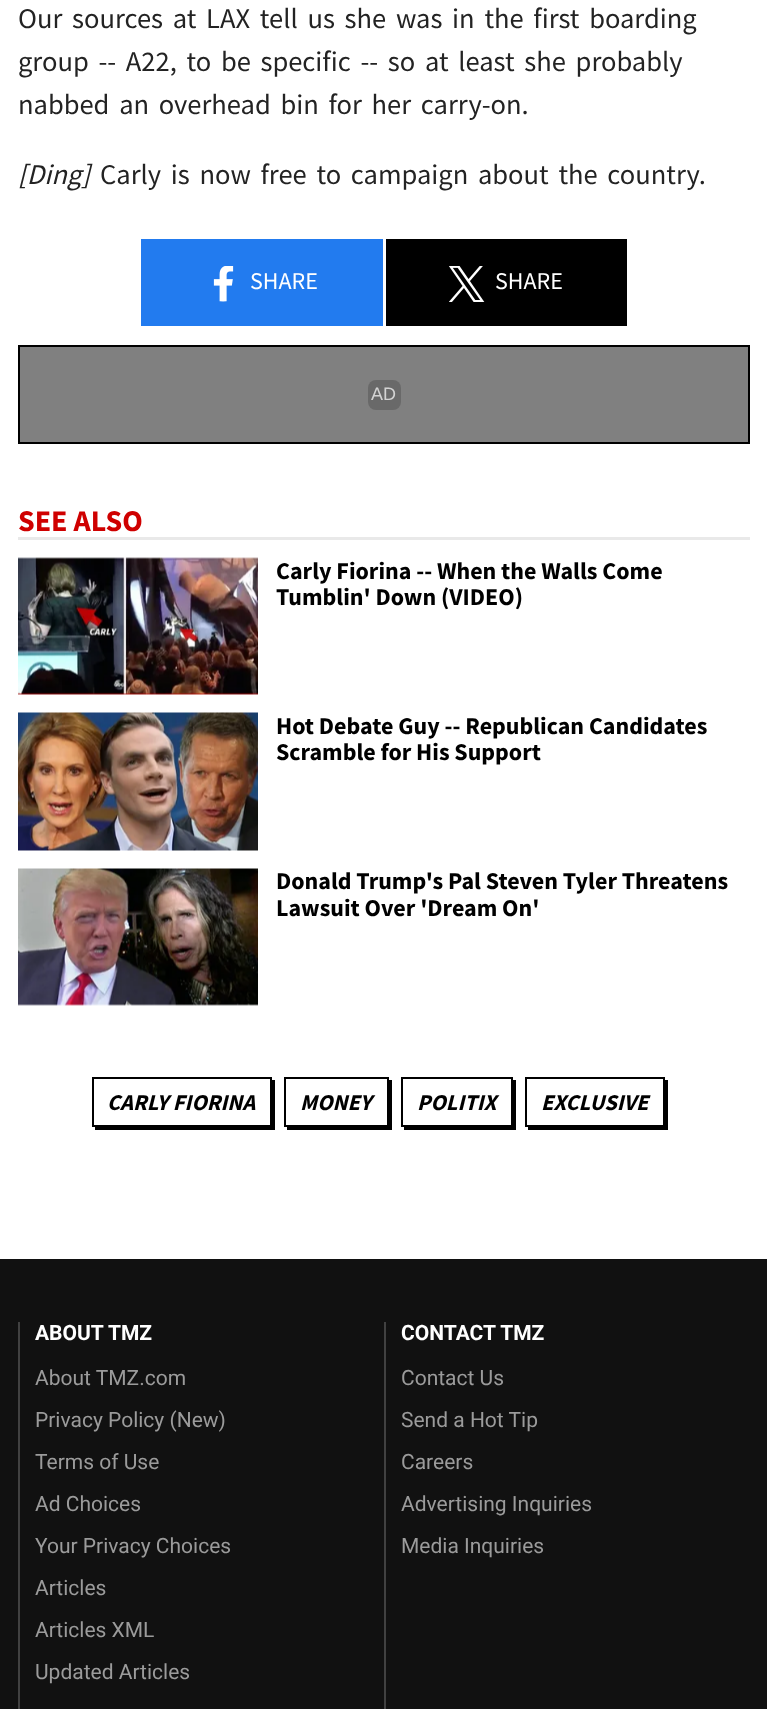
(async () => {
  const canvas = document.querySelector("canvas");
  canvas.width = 767;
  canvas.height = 1709;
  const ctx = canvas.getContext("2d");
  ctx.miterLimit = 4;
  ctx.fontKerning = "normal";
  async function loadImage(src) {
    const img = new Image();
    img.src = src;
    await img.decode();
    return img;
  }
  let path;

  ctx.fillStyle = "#ffffff";
  ctx.fillRect(0, 0, 767, 1709);
  ctx.fillStyle = "#227bef";
  ctx.fillRect(141, 239, 242, 87);
  ctx.drawImage(await loadImage("img/1.png"), 213, 266, 21, 36);
  ctx.fillStyle = "#000000";
  ctx.fillRect(386, 239, 241, 87);
  ctx.drawImage(await loadImage("img/2.png"), 449, 266, 36, 36);
  ctx.fillStyle = "#808080";
  ctx.beginPath();
  ctx.rect(19, 346, 730, 97);
  ctx.fill();
  ctx.strokeStyle = "#000000";
  ctx.lineWidth = 2;
  ctx.stroke();
  ctx.fillStyle = "#696969";
  ctx.beginPath();
  ctx.roundRect(368, 380, 33, 30, 8);
  ctx.fill();
  ctx.fillStyle = "#e9e9e9";
  ctx.fillRect(18, 537, 732, 3);
  ctx.drawImage(await loadImage("img/3.png"), 18, 557, 240, 138);
  ctx.drawImage(await loadImage("img/4.png"), 18, 712, 240, 139);
  ctx.drawImage(await loadImage("img/5.png"), 18, 868, 240, 138);
  ctx.fillStyle = "#000000";
  path = new Path2D("M95 1126V1130H275V1080H272V1126Z");
  ctx.fill(path);
  ctx.strokeRect(93, 1078, 178, 48);
  path = new Path2D("M287 1126V1130H392V1080H388V1126Z");
  ctx.fill(path);
  ctx.strokeRect(285, 1078, 103, 48);
  path = new Path2D("M404 1126V1130H516V1080H513V1126Z");
  ctx.fill(path);
  ctx.strokeRect(402, 1078, 110, 48);
  path = new Path2D("M528 1126V1130H668V1080H664V1126Z");
  ctx.fill(path);
  ctx.strokeRect(526, 1078, 138, 48);
  for (const [x, y, w, h, color] of [
    [0, 1259, 767, 450, "#111111"],
    [18, 1322, 2, 387, "#414141"],
    [384, 1322, 2, 387, "#414141"],
  ]) {
    ctx.fillStyle = color;
    ctx.fillRect(x, y, w, h);
  }
  ctx.wordSpacing = "4px";
  ctx.font = "28.5px Source Sans Pro";
  ctx.fillStyle = "#232323";
  for (const [text, x, y] of [
    ["Our sources at LAX tell us she was in the first boarding", 18, 28],
    ["group -- A22, to be specific -- so at least she probably", 18, 71],
    ["nabbed an overhead bin for her carry-on.", 18, 114],
  ]) {
    ctx.fillText(text, x, y);
  }
  ctx.wordSpacing = "0px";
  ctx.font = "italic 28.5px Source Sans Pro";
  ctx.fillText("[Ding]", 18, 184);
  ctx.wordSpacing = "4px";
  ctx.font = "28.5px Source Sans Pro";
  ctx.fillText("Carly is now free to campaign about the country.", 100, 184);
  ctx.wordSpacing = "0px";
  ctx.font = "24px Source Sans Pro";
  ctx.fillStyle = "#ffffff";
  ctx.fillText("SHARE", 250, 289);
  ctx.fillText("SHARE", 495, 289);
  ctx.font = "18px Liberation Sans";
  ctx.fillStyle = "#d3d3d3";
  ctx.fillText("AD", 371, 400);
  ctx.font = "bold 30px Source Sans Pro";
  ctx.fillStyle = "#cf0000";
  ctx.fillText("SEE ALSO", 18, 531);
  ctx.font = "bold 24px Source Sans Pro";
  ctx.fillStyle = "#000000";
  for (const [text, x, y] of [
    ["Carly Fiorina -- When the Walls Come", 276, 579],
    ["Tumblin' Down (VIDEO)", 276, 605],
    ["Hot Debate Guy -- Republican Candidates", 276, 734],
    ["Scramble for His Support", 276, 760],
    ["Donald Trump's Pal Steven Tyler Threatens", 276, 889],
    ["Lawsuit Over 'Dream On'", 276, 916],
  ]) {
    ctx.fillText(text, x, y);
  }
  ctx.font = "italic bold 22.5px Source Sans Pro";
  for (const [text, x, y] of [
    ["CARLY FIORINA", 107, 1110],
    ["MONEY", 300, 1110],
    ["POLITIX", 417, 1110],
    ["EXCLUSIVE", 541, 1110],
  ]) {
    ctx.fillText(text, x, y);
  }
  ctx.font = "bold 21px Roboto";
  ctx.fillStyle = "#ffffff";
  ctx.fillText("ABOUT TMZ", 35, 1340);
  ctx.font = "21px Roboto";
  ctx.fillStyle = "#9b9b9b";
  for (const [text, x, y] of [
    ["About TMZ.com", 35, 1385],
    ["Privacy Policy (New)", 35, 1427],
    ["Terms of Use", 35, 1469],
    ["Ad Choices", 35, 1511],
    ["Your Privacy Choices", 35, 1553],
    ["Articles", 35, 1595],
    ["Articles XML", 35, 1637],
    ["Updated Articles", 35, 1679],
  ]) {
    ctx.fillText(text, x, y);
  }
  ctx.font = "bold 21px Roboto";
  ctx.fillStyle = "#ffffff";
  ctx.fillText("CONTACT TMZ", 401, 1340);
  ctx.font = "21px Roboto";
  ctx.fillStyle = "#9b9b9b";
  for (const [text, x, y] of [
    ["Contact Us", 401, 1385],
    ["Send a Hot Tip", 401, 1427],
    ["Careers", 401, 1469],
    ["Advertising Inquiries", 401, 1511],
    ["Media Inquiries", 401, 1553],
  ]) {
    ctx.fillText(text, x, y);
  }
})();
